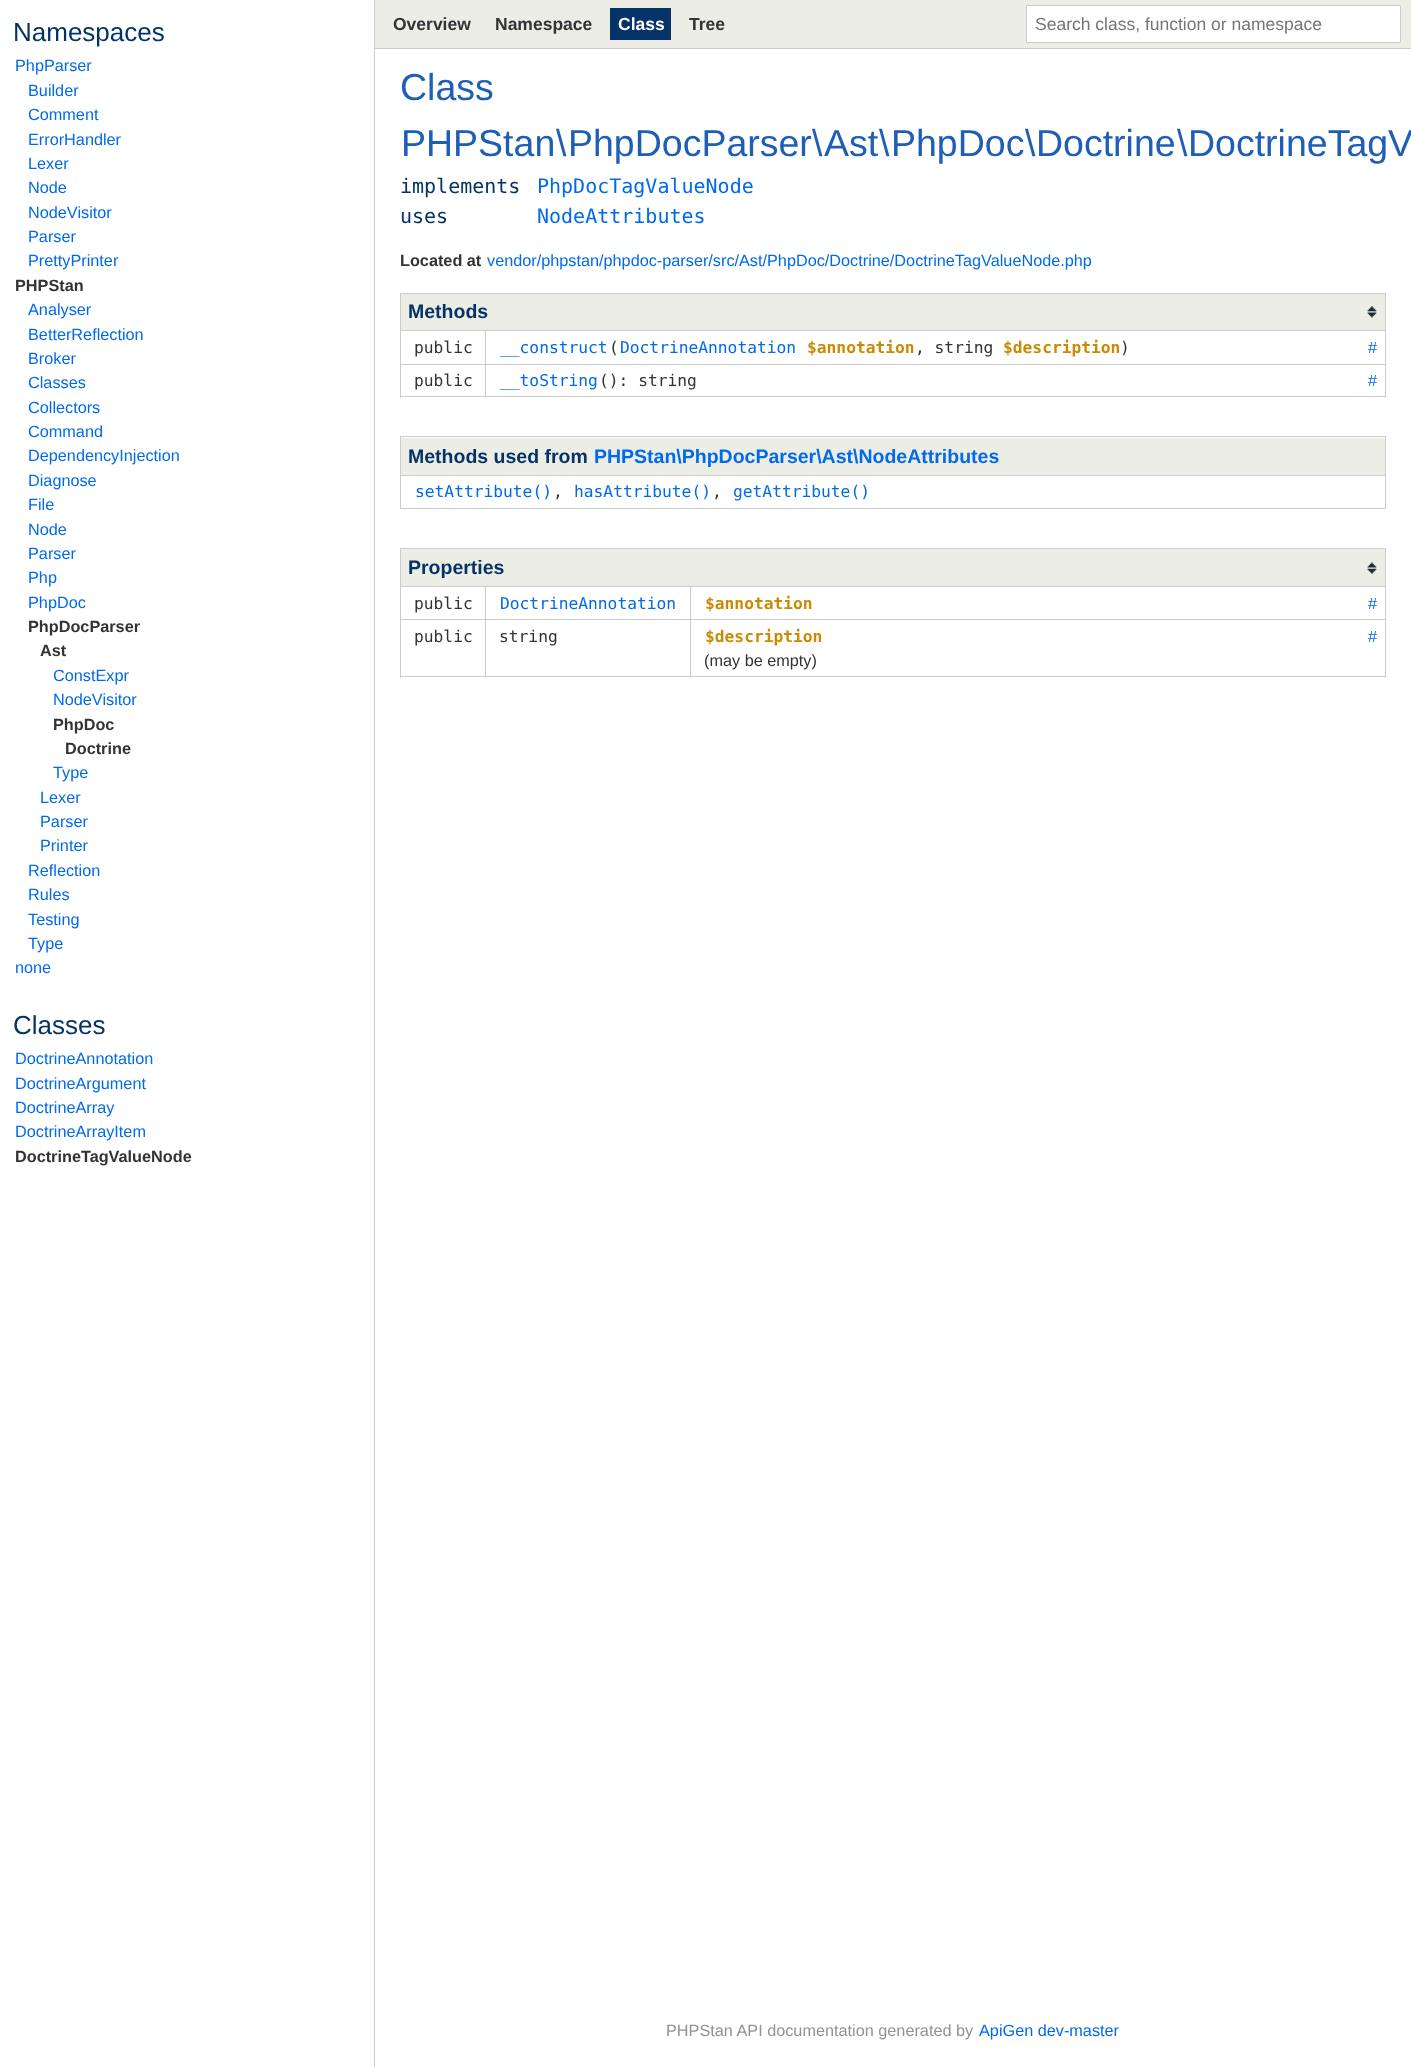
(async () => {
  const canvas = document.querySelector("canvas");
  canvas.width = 1411;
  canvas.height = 2067;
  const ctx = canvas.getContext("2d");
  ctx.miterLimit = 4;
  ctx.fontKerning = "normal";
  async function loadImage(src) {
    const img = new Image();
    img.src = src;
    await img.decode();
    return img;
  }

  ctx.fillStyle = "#ffffff";
  ctx.fillRect(0, 0, 1411, 2067);
  for (const [x, y, w, h, color] of [
    [374, 0, 1, 2067, "#cccccc"],
    [375, 0, 1036, 48, "#ecede5"],
    [375, 48, 1036, 1, "#cccccc"],
    [610, 8, 61, 32, "#053368"],
  ]) {
    ctx.fillStyle = color;
    ctx.fillRect(x, y, w, h);
  }
  ctx.fillStyle = "#ffffff";
  ctx.beginPath();
  ctx.rect(1026.5, 5.5, 374, 37);
  ctx.fill();
  ctx.strokeStyle = "#cccccc";
  ctx.stroke();
  ctx.fillStyle = "#ecede5";
  ctx.fillRect(401, 294, 984, 36);
  ctx.drawImage(await loadImage("img/1.png"), 1367, 306, 10, 12);
  for (const [x, y, w, h, color] of [
    [400, 293, 986, 1, "#cccccc"],
    [485, 330, 901, 1, "#cccccc"],
    [485, 364, 901, 1, "#cccccc"],
    [1385, 364, 1, 34, "#cccccc"],
    [1385, 330, 1, 35, "#cccccc"],
    [1385, 293, 1, 38, "#cccccc"],
    [485, 396, 901, 1, "#cccccc"],
    [485, 364, 1, 34, "#cccccc"],
    [400, 364, 86, 1, "#cccccc"],
    [485, 330, 1, 35, "#cccccc"],
    [400, 330, 86, 1, "#cccccc"],
    [400, 396, 86, 1, "#cccccc"],
    [400, 364, 1, 34, "#cccccc"],
    [400, 330, 1, 35, "#cccccc"],
    [400, 293, 1, 38, "#cccccc"],
    [401, 438, 984, 37, "#ecede5"],
    [400, 436, 986, 1, "#cccccc"],
    [400, 475, 986, 1, "#cccccc"],
    [1385, 475, 1, 34, "#cccccc"],
    [1385, 436, 1, 40, "#cccccc"],
    [400, 508, 986, 1, "#cccccc"],
    [400, 475, 1, 34, "#cccccc"],
    [400, 436, 1, 40, "#cccccc"],
    [401, 549, 984, 37, "#ecede5"],
  ]) {
    ctx.fillStyle = color;
    ctx.fillRect(x, y, w, h);
  }
  ctx.drawImage(await loadImage("img/2.png"), 1367, 562, 10, 12);
  for (const [x, y, w, h, color] of [
    [400, 548, 986, 1, "#cccccc"],
    [690, 586, 696, 1, "#cccccc"],
    [690, 619, 696, 1, "#cccccc"],
    [1385, 619, 1, 59, "#cccccc"],
    [1385, 586, 1, 34, "#cccccc"],
    [1385, 548, 1, 40, "#cccccc"],
    [690, 676, 696, 1, "#cccccc"],
    [690, 619, 1, 59, "#cccccc"],
    [485, 619, 206, 1, "#cccccc"],
    [690, 586, 1, 34, "#cccccc"],
    [485, 586, 206, 1, "#cccccc"],
    [485, 676, 206, 1, "#cccccc"],
    [485, 619, 1, 59, "#cccccc"],
    [400, 619, 86, 1, "#cccccc"],
    [485, 586, 1, 34, "#cccccc"],
    [400, 586, 86, 1, "#cccccc"],
    [400, 676, 86, 1, "#cccccc"],
    [400, 619, 1, 59, "#cccccc"],
    [400, 586, 1, 34, "#cccccc"],
    [400, 548, 1, 40, "#cccccc"],
  ]) {
    ctx.fillStyle = color;
    ctx.fillRect(x, y, w, h);
  }
  ctx.font = "26px Liberation Sans";
  ctx.fillStyle = "#053368";
  ctx.fillText("Namespaces", 13, 41);
  ctx.font = "16.25px Liberation Sans";
  ctx.fillStyle = "#006aeb";
  for (const [text, x, y] of [
    ["PhpParser", 15, 71],
    ["Builder", 28, 96],
    ["Comment", 28, 120],
    ["ErrorHandler", 28, 145],
    ["Lexer", 28, 169],
    ["Node", 28, 193],
    ["NodeVisitor", 28, 218],
    ["Parser", 28, 242],
    ["PrettyPrinter", 28, 266],
  ]) {
    ctx.fillText(text, x, y);
  }
  ctx.font = "bold 16.25px Liberation Sans";
  ctx.fillStyle = "#333333";
  ctx.fillText("PHPStan", 15, 291);
  ctx.font = "16.25px Liberation Sans";
  ctx.fillStyle = "#006aeb";
  for (const [text, x, y] of [
    ["Analyser", 28, 315],
    ["BetterReflection", 28, 340],
    ["Broker", 28, 364],
    ["Classes", 28, 388],
    ["Collectors", 28, 413],
    ["Command", 28, 437],
    ["DependencyInjection", 28, 461],
    ["Diagnose", 28, 486],
    ["File", 28, 510],
    ["Node", 28, 535],
    ["Parser", 28, 559],
    ["Php", 28, 583],
    ["PhpDoc", 28, 608],
  ]) {
    ctx.fillText(text, x, y);
  }
  ctx.font = "bold 16.25px Liberation Sans";
  ctx.fillStyle = "#333333";
  ctx.fillText("PhpDocParser", 28, 632);
  ctx.fillText("Ast", 40, 656);
  ctx.font = "16.25px Liberation Sans";
  ctx.fillStyle = "#006aeb";
  ctx.fillText("ConstExpr", 53, 681);
  ctx.fillText("NodeVisitor", 53, 705);
  ctx.font = "bold 16.25px Liberation Sans";
  ctx.fillStyle = "#333333";
  ctx.fillText("PhpDoc", 53, 730);
  ctx.fillText("Doctrine", 65, 754);
  ctx.font = "16.25px Liberation Sans";
  ctx.fillStyle = "#006aeb";
  for (const [text, x, y] of [
    ["Type", 53, 778],
    ["Lexer", 40, 803],
    ["Parser", 40, 827],
    ["Printer", 40, 851],
    ["Reflection", 28, 876],
    ["Rules", 28, 900],
    ["Testing", 28, 925],
    ["Type", 28, 949],
    ["none", 15, 973],
  ]) {
    ctx.fillText(text, x, y);
  }
  ctx.font = "26px Liberation Sans";
  ctx.fillStyle = "#053368";
  ctx.fillText("Classes", 13, 1034);
  ctx.font = "16.25px Liberation Sans";
  ctx.fillStyle = "#006aeb";
  for (const [text, x, y] of [
    ["DoctrineAnnotation", 15, 1064],
    ["DoctrineArgument", 15, 1089],
    ["DoctrineArray", 15, 1113],
    ["DoctrineArrayItem", 15, 1137],
  ]) {
    ctx.fillText(text, x, y);
  }
  ctx.font = "bold 16.25px Liberation Sans";
  ctx.fillStyle = "#333333";
  ctx.fillText("DoctrineTagValueNode", 15, 1162);
  ctx.font = "bold 17.5px Liberation Sans";
  ctx.fillText("Overview", 393, 30);
  ctx.fillText("Namespace", 495, 30);
  ctx.fillStyle = "#ffffff";
  ctx.fillText("Class", 618, 30);
  ctx.fillStyle = "#333333";
  ctx.fillText("Tree", 689, 30);
  ctx.font = "17.5px Liberation Sans";
  ctx.fillStyle = "#757575";
  ctx.fillText("Search class, function or namespace", 1035, 30);
  ctx.font = "37.5px Liberation Sans";
  ctx.fillStyle = "#1e5eb6";
  for (const [text, x, y] of [
    ["Class", 400, 100],
    ["PHPStan", 401, 156],
    ["\\", 556, 156],
    ["PhpDocParser", 568, 156],
    ["\\", 812, 156],
    ["Ast", 824, 156],
    ["\\", 879, 156],
    ["PhpDoc", 891, 156],
    ["\\", 1025, 156],
    ["Doctrine", 1036, 156],
    ["\\", 1177, 156],
    ["DoctrineTagV", 1188, 156],
  ]) {
    ctx.fillText(text, x, y);
  }
  ctx.font = "20px DejaVu Sans Mono";
  ctx.fillStyle = "#053368";
  ctx.fillText("implements", 400, 193);
  ctx.fillStyle = "#006aeb";
  ctx.fillText("PhpDocTagValueNode", 537, 193);
  ctx.fillStyle = "#053368";
  ctx.fillText("uses", 400, 223);
  ctx.fillStyle = "#006aeb";
  ctx.fillText("NodeAttributes", 537, 223);
  ctx.font = "bold 16.25px Liberation Sans";
  ctx.fillStyle = "#333333";
  ctx.fillText("Located at", 400, 266);
  ctx.font = "16.25px Liberation Sans";
  ctx.fillStyle = "#006aeb";
  ctx.fillText("vendor/phpstan/phpdoc-parser/src/Ast/PhpDoc/Doctrine/DoctrineTagValueNode.php", 487, 266);
  ctx.font = "bold 19.5px Liberation Sans";
  ctx.fillStyle = "#053368";
  ctx.fillText("Methods", 408, 318);
  ctx.font = "16.25px DejaVu Sans Mono";
  ctx.fillStyle = "#333333";
  ctx.fillText("public", 414, 353);
  ctx.fillStyle = "#006aeb";
  ctx.fillText("__construct", 500, 353);
  ctx.fillStyle = "#333333";
  ctx.fillText("(", 609, 353);
  ctx.fillStyle = "#006aeb";
  ctx.fillText("DoctrineAnnotation", 620, 353);
  ctx.font = "bold 16.25px DejaVu Sans Mono";
  ctx.fillStyle = "#ca8a04";
  ctx.fillText("$annotation", 807, 353);
  ctx.font = "16.25px DejaVu Sans Mono";
  ctx.fillStyle = "#333333";
  ctx.fillText(", string", 915, 353);
  ctx.font = "bold 16.25px DejaVu Sans Mono";
  ctx.fillStyle = "#ca8a04";
  ctx.fillText("$description", 1003, 353);
  ctx.font = "16.25px DejaVu Sans Mono";
  ctx.fillStyle = "#333333";
  ctx.fillText(")", 1120, 353);
  ctx.font = "16.25px Liberation Sans";
  ctx.fillStyle = "#006aeb";
  ctx.fillText("#", 1368, 353);
  ctx.font = "16.25px DejaVu Sans Mono";
  ctx.fillStyle = "#333333";
  ctx.fillText("public", 414, 386);
  ctx.fillStyle = "#006aeb";
  ctx.fillText("__toString", 500, 386);
  ctx.fillStyle = "#333333";
  ctx.fillText("(): string", 599, 386);
  ctx.font = "16.25px Liberation Sans";
  ctx.fillStyle = "#006aeb";
  ctx.fillText("#", 1368, 386);
  ctx.font = "bold 19.5px Liberation Sans";
  ctx.fillStyle = "#053368";
  ctx.fillText("Methods used from", 408, 463);
  ctx.fillStyle = "#006aeb";
  ctx.fillText("PHPStan\\PhpDocParser\\Ast\\NodeAttributes", 594, 463);
  ctx.font = "16.25px DejaVu Sans Mono";
  ctx.fillText("setAttribute()", 415, 497);
  ctx.fillStyle = "#333333";
  ctx.fillText(",", 553, 497);
  ctx.fillStyle = "#006aeb";
  ctx.fillText("hasAttribute()", 574, 497);
  ctx.fillStyle = "#333333";
  ctx.fillText(",", 712, 497);
  ctx.fillStyle = "#006aeb";
  ctx.fillText("getAttribute()", 733, 497);
  ctx.font = "bold 19.5px Liberation Sans";
  ctx.fillStyle = "#053368";
  ctx.fillText("Properties", 408, 574);
  ctx.font = "16.25px DejaVu Sans Mono";
  ctx.fillStyle = "#333333";
  ctx.fillText("public", 414, 609);
  ctx.fillStyle = "#006aeb";
  ctx.fillText("DoctrineAnnotation", 500, 609);
  ctx.font = "bold 16.25px DejaVu Sans Mono";
  ctx.fillStyle = "#ca8a04";
  ctx.fillText("$annotation", 705, 609);
  ctx.font = "16.25px Liberation Sans";
  ctx.fillStyle = "#006aeb";
  ctx.fillText("#", 1368, 609);
  ctx.font = "16.25px DejaVu Sans Mono";
  ctx.fillStyle = "#333333";
  ctx.fillText("public", 414, 642);
  ctx.fillText("string", 499, 642);
  ctx.font = "bold 16.25px DejaVu Sans Mono";
  ctx.fillStyle = "#ca8a04";
  ctx.fillText("$description", 705, 642);
  ctx.font = "16.25px Liberation Sans";
  ctx.fillStyle = "#333333";
  ctx.fillText("(may be empty)", 704, 666);
  ctx.fillStyle = "#006aeb";
  ctx.fillText("#", 1368, 642);
  ctx.fillStyle = "#929292";
  ctx.fillText("PHPStan API documentation generated by", 666, 2036);
  ctx.fillStyle = "#006aeb";
  ctx.fillText("ApiGen dev-master", 979, 2036);
})();
